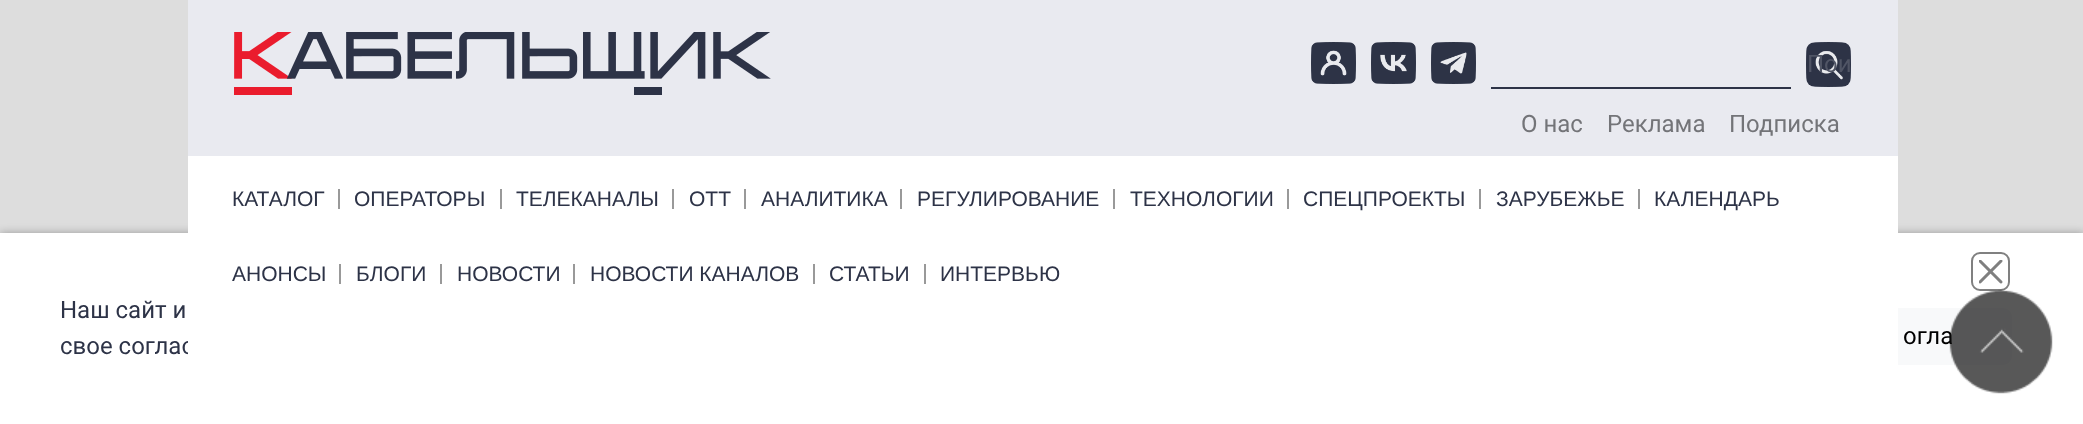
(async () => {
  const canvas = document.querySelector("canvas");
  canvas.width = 2083;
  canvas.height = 424;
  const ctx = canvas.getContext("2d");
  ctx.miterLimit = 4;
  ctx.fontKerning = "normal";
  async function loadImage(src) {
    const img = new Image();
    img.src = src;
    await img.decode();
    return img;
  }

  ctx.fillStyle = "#dddddd";
  ctx.fillRect(0, 0, 2083, 424);
  ctx.fillStyle = "#e9eaf0";
  ctx.fillRect(188, 0, 1710, 156);
  ctx.drawImage(await loadImage("img/1.png"), 234, 32, 537, 63);
  ctx.drawImage(await loadImage("img/2.png"), 1311, 42, 45, 42);
  ctx.drawImage(await loadImage("img/3.png"), 1371, 42, 45, 42);
  ctx.drawImage(await loadImage("img/4.png"), 1431, 42, 45, 42);
  ctx.drawImage(await loadImage("img/5.png"), 1806, 42, 45, 45);
  ctx.fillStyle = "#2d3347";
  ctx.fillRect(1491, 87, 300, 2);
  ctx.fillStyle = "rgba(0, 0, 0, 0.3)";
  ctx.filter = "blur(4px)";
  ctx.beginPath();
  ctx.rect(0, 233, 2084, 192);
  ctx.fill();
  ctx.filter = "none";
  ctx.fillStyle = "#ffffff";
  ctx.fillRect(0, 233, 2083, 191);
  ctx.drawImage(await loadImage("img/6.png"), 1979, 260, 24, 24);
  ctx.beginPath();
  ctx.roundRect(1972, 253, 37, 37, 8);
  ctx.strokeStyle = "#808080";
  ctx.lineWidth = 2;
  ctx.stroke();
  ctx.fillStyle = "#f8f9fa";
  ctx.beginPath();
  ctx.roundRect(1868, 308, 144, 57, 9);
  ctx.fill();
  ctx.font = "24px Roboto";
  ctx.fillStyle = "#505565";
  ctx.fillText("Пои", 1807, 72);
  ctx.fillStyle = "#737478";
  for (const [text, x, y] of [
    ["О нас", 1521, 132],
    ["Реклама", 1607, 132],
    ["Подписка", 1729, 132],
  ]) {
    ctx.fillText(text, x, y);
  }
  ctx.fillStyle = "#2d3347";
  ctx.fillText("Наш сайт и", 60, 318);
  ctx.fillText("свое соглас", 60, 354);
  ctx.fillStyle = "#ffffff";
  ctx.fillRect(188, 156, 1710, 209);
  ctx.font = "21px Liberation Sans";
  ctx.fillStyle = "#2d3347";
  ctx.fillText("ИНТЕРВЬЮ", 940, 281);
  ctx.fillStyle = "#999999";
  ctx.fillRect(924, 264, 2, 20);
  ctx.fillStyle = "#2d3347";
  ctx.fillText("СТАТЬИ", 829, 281);
  ctx.fillStyle = "#999999";
  ctx.fillRect(813, 264, 2, 20);
  ctx.fillStyle = "#2d3347";
  ctx.fillText("НОВОСТИ КАНАЛОВ", 590, 281);
  ctx.fillStyle = "#999999";
  ctx.fillRect(573, 264, 2, 20);
  ctx.fillStyle = "#2d3347";
  ctx.fillText("НОВОСТИ", 457, 281);
  ctx.fillStyle = "#999999";
  ctx.fillRect(440, 264, 2, 20);
  ctx.fillStyle = "#2d3347";
  ctx.fillText("БЛОГИ", 356, 281);
  ctx.fillStyle = "#999999";
  ctx.fillRect(339, 264, 2, 20);
  ctx.fillStyle = "#2d3347";
  ctx.fillText("АНОНСЫ", 232, 281);
  ctx.fillText("КАЛЕНДАРЬ", 1654, 206);
  ctx.fillStyle = "#999999";
  ctx.fillRect(1638, 189, 2, 20);
  ctx.fillStyle = "#2d3347";
  ctx.fillText("ЗАРУБЕЖЬЕ", 1496, 206);
  ctx.fillStyle = "#999999";
  ctx.fillRect(1479, 189, 2, 20);
  ctx.fillStyle = "#2d3347";
  ctx.fillText("СПЕЦПРОЕКТЫ", 1303, 206);
  ctx.fillStyle = "#999999";
  ctx.fillRect(1287, 189, 2, 20);
  ctx.fillStyle = "#2d3347";
  ctx.fillText("ТЕХНОЛОГИИ", 1130, 206);
  ctx.fillStyle = "#999999";
  ctx.fillRect(1113, 189, 2, 20);
  ctx.fillStyle = "#2d3347";
  ctx.fillText("РЕГУЛИРОВАНИЕ", 917, 206);
  ctx.fillStyle = "#999999";
  ctx.fillRect(900, 189, 2, 20);
  ctx.fillStyle = "#2d3347";
  ctx.fillText("АНАЛИТИКА", 761, 206);
  ctx.fillStyle = "#999999";
  ctx.fillRect(744, 189, 2, 20);
  ctx.fillStyle = "#2d3347";
  ctx.fillText("ОТТ", 689, 206);
  ctx.fillStyle = "#999999";
  ctx.fillRect(672, 189, 2, 20);
  ctx.fillStyle = "#2d3347";
  ctx.fillText("ТЕЛЕКАНАЛЫ", 516, 206);
  ctx.fillStyle = "#999999";
  ctx.fillRect(500, 189, 2, 20);
  ctx.fillStyle = "#2d3347";
  ctx.fillText("ОПЕРАТОРЫ", 354, 206);
  ctx.fillStyle = "#999999";
  ctx.fillRect(338, 189, 2, 20);
  ctx.fillStyle = "#2d3347";
  ctx.fillText("КАТАЛОГ", 232, 206);
  ctx.font = "24px Roboto";
  ctx.fillStyle = "#000000";
  ctx.fillText("огла", 1903, 344);
  ctx.drawImage(await loadImage("img/7.png"), 1949, 289, 104, 105);
})();
